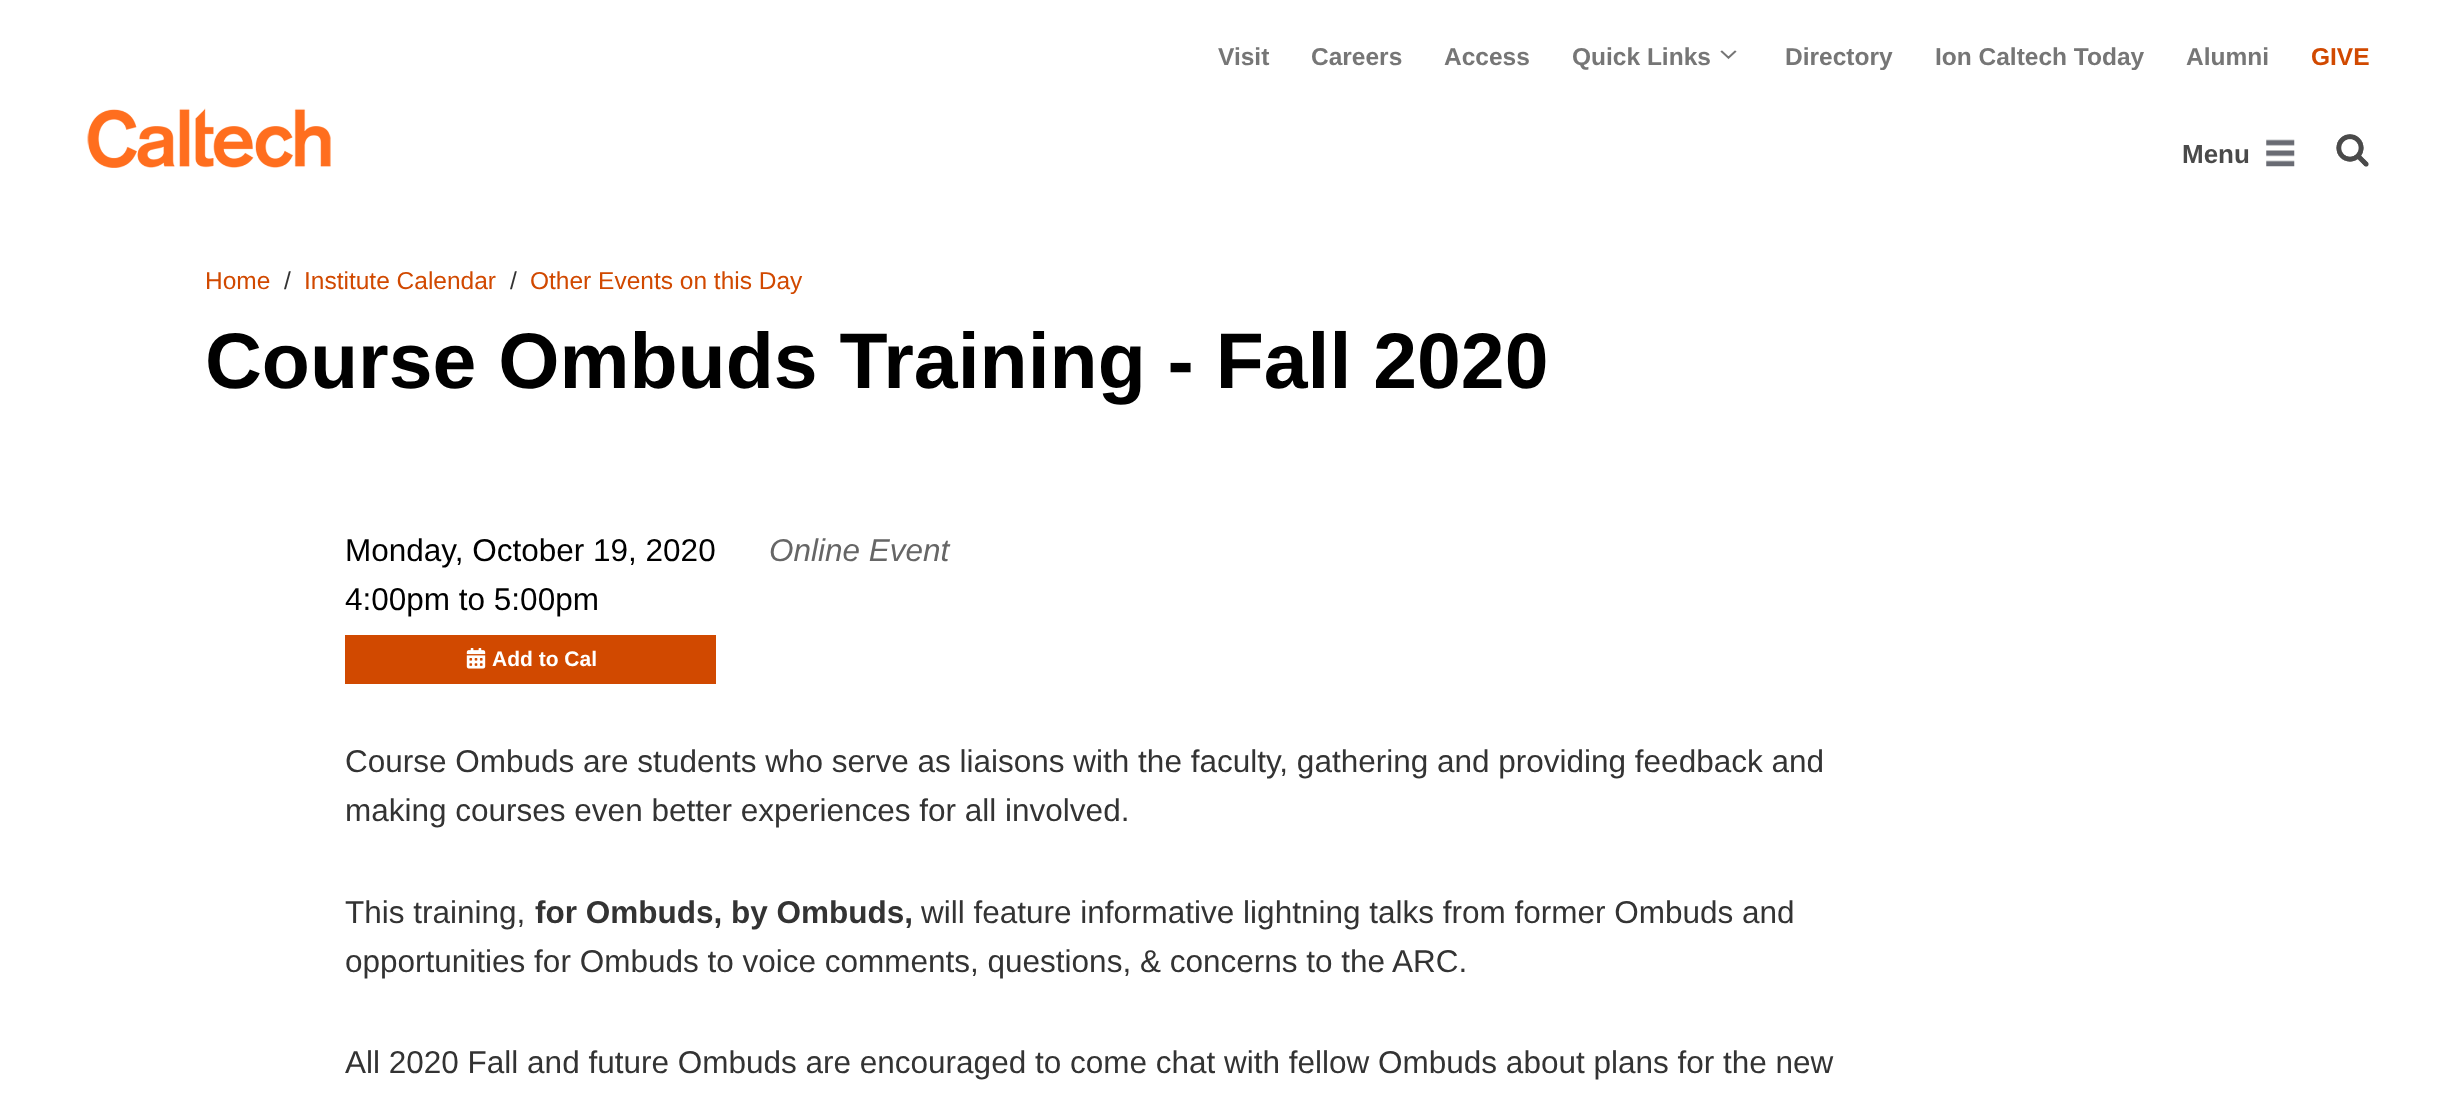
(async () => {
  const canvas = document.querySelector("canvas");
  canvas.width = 2456;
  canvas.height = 1097;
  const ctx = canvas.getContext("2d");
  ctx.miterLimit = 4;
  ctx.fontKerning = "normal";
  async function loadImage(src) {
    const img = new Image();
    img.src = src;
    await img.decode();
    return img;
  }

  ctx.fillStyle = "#ffffff";
  ctx.fillRect(0, 0, 2456, 1097);
  ctx.drawImage(await loadImage("img/1.png"), 1720, 50, 17, 10);
  ctx.drawImage(await loadImage("img/2.png"), 87, 108, 244, 60);
  ctx.drawImage(await loadImage("img/3.png"), 2266, 139, 29, 28);
  ctx.drawImage(await loadImage("img/4.png"), 2336, 134, 33, 33);
  ctx.fillStyle = "#d14900";
  ctx.fillRect(345, 635, 371, 49);
  ctx.drawImage(await loadImage("img/5.png"), 466, 648, 20, 21);
  ctx.font = "bold 24.5px Liberation Sans";
  ctx.fillStyle = "#767676";
  for (const [text, x, y] of [
    ["Visit", 1218, 65],
    ["Careers", 1311, 65],
    ["Access", 1444, 65],
    ["Quick Links", 1572, 65],
    ["Directory", 1785, 65],
    ["Ion Caltech Today", 1935, 65],
    ["Alumni", 2186, 65],
  ]) {
    ctx.fillText(text, x, y);
  }
  ctx.fillStyle = "#d14900";
  ctx.fillText("GIVE", 2311, 65);
  ctx.font = "bold 26px Liberation Sans";
  ctx.fillStyle = "#4a4a4a";
  ctx.fillText("Menu", 2182, 163);
  ctx.font = "24.5px Liberation Sans";
  ctx.fillStyle = "#d14900";
  ctx.fillText("Home", 205, 289);
  ctx.fillStyle = "#333333";
  ctx.fillText("/", 284, 289);
  ctx.fillStyle = "#d14900";
  ctx.fillText("Institute Calendar", 304, 289);
  ctx.fillStyle = "#333333";
  ctx.fillText("/", 510, 289);
  ctx.fillStyle = "#d14900";
  ctx.fillText("Other Events on this Day", 530, 289);
  ctx.font = "bold 78.75px Liberation Sans";
  ctx.fillStyle = "#000000";
  ctx.fillText("Course Ombuds Training - Fall 2020", 205, 388);
  ctx.font = "31.5px Liberation Sans";
  ctx.fillText("Monday, October 19, 2020", 345, 561);
  ctx.fillText("4:00pm to 5:00pm", 345, 610);
  ctx.font = "bold 21px Liberation Sans";
  ctx.fillStyle = "#ffffff";
  ctx.fillText("Add to Cal", 492, 666);
  ctx.font = "italic 31.5px Liberation Sans";
  ctx.fillStyle = "#666666";
  ctx.fillText("Online Event", 769, 561);
  ctx.font = "31.5px Liberation Sans";
  ctx.fillStyle = "#333333";
  for (const [text, x, y] of [
    ["Course Ombuds are students who serve as liaisons with the faculty, gathering and providing feedback and", 345, 772],
    ["making courses even better experiences for all involved.", 345, 821],
    ["This training,", 345, 923],
  ]) {
    ctx.fillText(text, x, y);
  }
  ctx.font = "bold 31.5px Liberation Sans";
  ctx.fillText("for Ombuds, by Ombuds,", 535, 923);
  ctx.font = "31.5px Liberation Sans";
  for (const [text, x, y] of [
    ["will feature informative lightning talks from former Ombuds and", 921, 923],
    ["opportunities for Ombuds to voice comments, questions, & concerns to the ARC.", 345, 972],
    ["All 2020 Fall and future Ombuds are encouraged to come chat with fellow Ombuds about plans for the new", 345, 1073],
  ]) {
    ctx.fillText(text, x, y);
  }
})();
